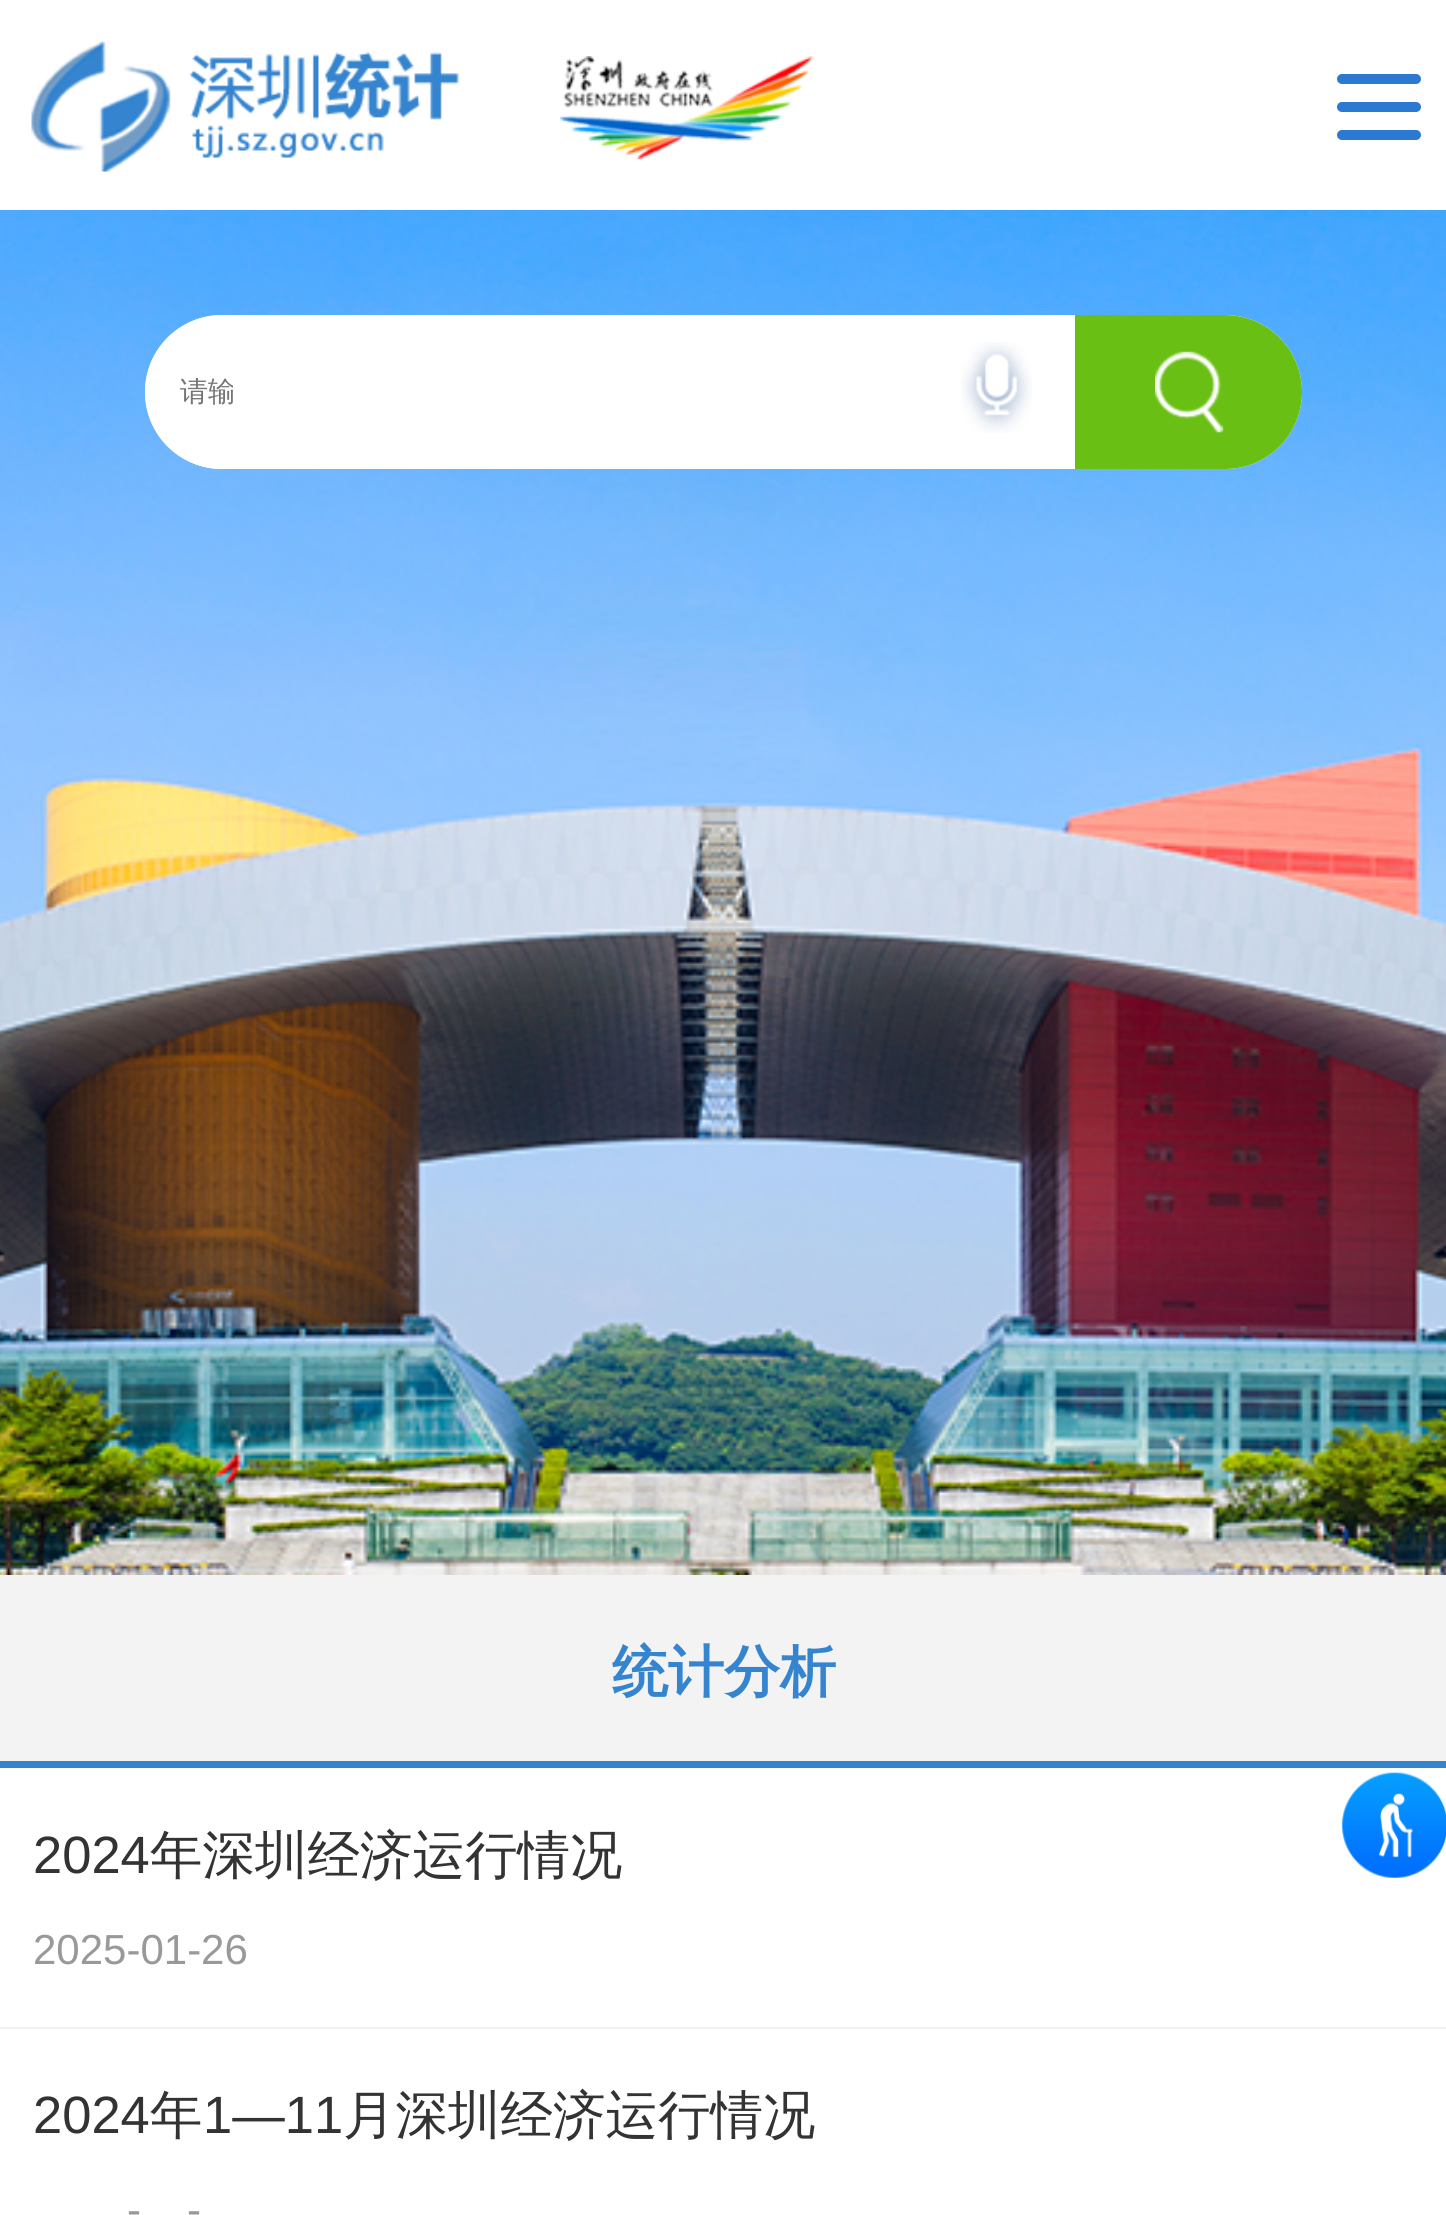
import math
import cairo



def rounded_rect(context, x, y, w, h, r):
    context.new_sub_path()
    for i, (u, v) in enumerate([(x + w - r, y + h - r), (x + r, y + h - r), (x + r, y + r), (x + w - r, y + r)]):
        context.arc(u, v, r, i * math.pi / 2, (i + 1) * math.pi / 2)
    context.close_path()


def draw_image(context, path, x, y, w, h):
    context.save()
    context.set_source_surface(cairo.ImageSurface.create_from_png(path), x, y)
    context.rectangle(x, y, w, h)
    context.fill()
    context.restore()


def draw(context):
    context.set_source_rgb(1, 1, 1)
    context.paint()
    draw_image(context, "images/1.png", 0, 210, 1446, 1365)
    draw_image(context, "images/2.png", 31, 41, 428, 131)
    draw_image(context, "images/3.png", 560, 56, 254, 104)
    context.set_source_rgb(44 / 255, 121 / 255, 210 / 255)
    rounded_rect(context, 1337, 74, 84, 10, 5)
    context.fill()
    rounded_rect(context, 1337, 102, 84, 10, 5)
    context.fill()
    rounded_rect(context, 1337, 130, 84, 10, 5)
    context.fill()
    context.set_source_rgb(1, 1, 1)
    rounded_rect(context, 145, 315, 1157, 154, 77)
    context.fill()
    context.new_path()
    context.move_to(222, 315)
    context.line_to(268, 315)
    context.line_to(268, 469)
    context.line_to(222, 469)
    context.curve_to(179.5, 469, 145, 434.5, 145, 392)
    context.curve_to(145, 349.5, 179.5, 315, 222, 315)
    context.close_path()
    context.fill()
    draw_image(context, "images/4.png", 961, 342, 71, 91)
    context.set_source_rgb(105 / 255, 191 / 255, 20 / 255)
    context.new_path()
    context.move_to(1075, 315)
    context.line_to(1225, 315)
    context.curve_to(1267.5, 315, 1302, 349.5, 1302, 392)
    context.curve_to(1302, 434.5, 1267.5, 469, 1225, 469)
    context.line_to(1075, 469)
    context.close_path()
    context.fill()
    draw_image(context, "images/5.png", 1155, 351, 69, 82)
    draw_image(context, "images/6.png", 1342, 1772, 104, 106)
    context.set_source_rgb(243 / 255, 243 / 255, 243 / 255)
    context.rectangle(0, 1575, 1446, 186)
    context.fill()
    context.set_source_rgb(53 / 255, 132 / 255, 207 / 255)
    context.rectangle(0, 1761, 1446, 7)
    context.fill()
    context.set_source_rgb(242 / 255, 242 / 255, 242 / 255)
    context.rectangle(0, 2027, 1446, 2)
    context.fill()
    context.save()
    context.rectangle(180, 375, 53, 36)
    context.clip()
    context.select_font_face("WenQuanYi Zen Hei Medium")
    context.set_font_size(28)
    context.set_source_rgb(117 / 255, 117 / 255, 117 / 255)
    context.move_to(180, 401)
    context.show_text("请输")
    context.restore()
    context.select_font_face("WenQuanYi Zen Hei", cairo.FontSlant.NORMAL, cairo.FontWeight.BOLD)
    context.set_font_size(56)
    context.set_source_rgb(53 / 255, 132 / 255, 207 / 255)
    context.move_to(612, 1691)
    context.show_text("统计分析")
    context.select_font_face("Liberation Sans")
    context.set_font_size(52.5)
    context.set_source_rgb(51 / 255, 51 / 255, 51 / 255)
    context.move_to(33, 1873)
    context.show_text("2024")
    context.select_font_face("WenQuanYi Zen Hei Medium")
    context.move_to(150, 1873)
    context.show_text("年深圳经济运行情况")
    context.select_font_face("Liberation Sans")
    context.set_font_size(42)
    context.set_source_rgb(153 / 255, 153 / 255, 153 / 255)
    context.move_to(33, 1964)
    context.show_text("2025-01-26")
    context.set_font_size(52.5)
    context.set_source_rgb(51 / 255, 51 / 255, 51 / 255)
    context.move_to(33, 2133)
    context.show_text("2024")
    context.select_font_face("WenQuanYi Zen Hei Medium")
    context.move_to(150, 2133)
    context.show_text("年")
    context.select_font_face("Liberation Sans")
    context.move_to(203, 2133)
    context.show_text("1—11")
    context.select_font_face("WenQuanYi Zen Hei Medium")
    context.move_to(343, 2133)
    context.show_text("月深圳经济运行情况")
    context.select_font_face("Liberation Sans")
    context.set_font_size(42)
    context.set_source_rgb(153 / 255, 153 / 255, 153 / 255)
    context.move_to(127, 2224)
    context.show_text("-")
    context.move_to(187, 2224)
    context.show_text("-")


surface = cairo.ImageSurface(cairo.Format.RGB24, 1446, 2215)
context = cairo.Context(surface)
options = cairo.FontOptions()
options.set_hint_metrics(cairo.HintMetrics.OFF)
options.set_hint_style(cairo.HintStyle.NONE)
context.set_font_options(options)
context.set_miter_limit(4)
draw(context)
surface.write_to_png("out.png")
